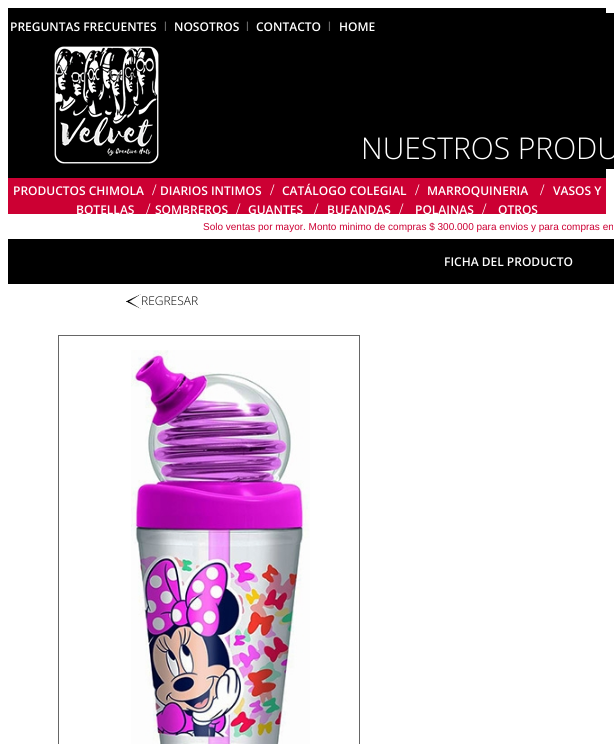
import math
import cairo



def draw_image(context, path, x, y, w, h):
    context.save()
    context.set_source_surface(cairo.ImageSurface.create_from_png(path), x, y)
    context.rectangle(x, y, w, h)
    context.fill()
    context.restore()


def draw(context):
    context.set_source_rgb(1, 1, 1)
    context.paint()
    context.set_source_rgb(0, 0, 0)
    context.rectangle(8, 8, 598, 170)
    context.fill()
    context.rectangle(606, 13, 8, 156)
    context.fill()
    draw_image(context, "images/1.png", 54, 46, 105, 118)
    context.set_source_rgb(204 / 255, 0, 51 / 255)
    context.rectangle(8, 178, 598, 36)
    context.fill()
    context.set_source_rgb(0, 0, 0)
    context.rectangle(8, 239, 606, 45)
    context.fill()
    draw_image(context, "images/2.png", 126, 294, 15, 15)
    context.rectangle(58.5, 335.5, 301, 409)
    context.set_source_rgb(102 / 255, 102 / 255, 102 / 255)
    context.set_line_width(1)
    context.stroke()
    draw_image(context, "images/3.png", 131, 350, 179, 394)
    context.select_font_face("Open Sans SemiBold")
    context.set_font_size(12)
    context.set_source_rgb(1, 1, 1)
    context.move_to(10, 31)
    context.show_text("PREGUNTAS FRECUENTES")
    context.select_font_face("Liberation Sans")
    context.set_font_size(13)
    context.set_source_rgb(102 / 255, 102 / 255, 102 / 255)
    context.move_to(164, 31)
    context.show_text("l")
    context.select_font_face("Open Sans SemiBold")
    context.set_font_size(12)
    context.set_source_rgb(1, 1, 1)
    context.move_to(174, 31)
    context.show_text("NOSOTROS")
    context.select_font_face("Liberation Sans")
    context.set_font_size(13)
    context.set_source_rgb(102 / 255, 102 / 255, 102 / 255)
    context.move_to(246, 31)
    context.show_text("l")
    context.select_font_face("Open Sans SemiBold")
    context.set_font_size(12)
    context.set_source_rgb(1, 1, 1)
    context.move_to(256, 31)
    context.show_text("CONTACTO")
    context.select_font_face("Liberation Sans")
    context.set_font_size(13)
    context.set_source_rgb(102 / 255, 102 / 255, 102 / 255)
    context.move_to(328, 31)
    context.show_text("l")
    context.select_font_face("Open Sans SemiBold")
    context.set_font_size(12)
    context.set_source_rgb(1, 1, 1)
    context.move_to(339, 31)
    context.show_text("HOME")
    context.select_font_face("Open Sans Light")
    context.set_font_size(30)
    context.move_to(361, 159)
    context.show_text("NUESTROS PRODU")
    context.select_font_face("Open Sans SemiBold")
    context.set_font_size(12)
    context.move_to(13, 195)
    context.show_text("PRODUCTOS CHIMOLA")
    context.select_font_face("Liberation Serif")
    context.set_font_size(16)
    context.move_to(152, 195)
    context.show_text("/")
    context.select_font_face("Open Sans SemiBold")
    context.set_font_size(12)
    context.move_to(160, 195)
    context.show_text("DIARIOS INTIMOS")
    context.select_font_face("Liberation Serif")
    context.set_font_size(16)
    context.move_to(270, 195)
    context.show_text("/")
    context.select_font_face("Open Sans SemiBold")
    context.set_font_size(12)
    context.move_to(282, 195)
    context.show_text("CATÁLOGO COLEGIAL")
    context.select_font_face("Liberation Serif")
    context.set_font_size(16)
    context.move_to(415, 195)
    context.show_text("/")
    context.select_font_face("Open Sans SemiBold")
    context.set_font_size(12)
    context.move_to(427, 195)
    context.show_text("MARROQUINERIA")
    context.select_font_face("Liberation Serif")
    context.set_font_size(16)
    context.move_to(540, 195)
    context.show_text("/")
    context.select_font_face("Open Sans SemiBold")
    context.set_font_size(12)
    context.move_to(553, 195)
    context.show_text("VASOS Y")
    context.move_to(76, 214)
    context.show_text("BOTELLAS")
    context.select_font_face("Liberation Serif")
    context.set_font_size(16)
    context.move_to(146, 214)
    context.show_text("/")
    context.select_font_face("Open Sans SemiBold")
    context.set_font_size(12)
    context.move_to(155, 214)
    context.show_text("SOMBREROS")
    context.select_font_face("Liberation Serif")
    context.set_font_size(16)
    context.move_to(236, 214)
    context.show_text("/")
    context.select_font_face("Open Sans SemiBold")
    context.set_font_size(12)
    context.move_to(248, 214)
    context.show_text("GUANTES")
    context.select_font_face("Liberation Serif")
    context.set_font_size(16)
    context.move_to(314, 214)
    context.show_text("/")
    context.select_font_face("Open Sans SemiBold")
    context.set_font_size(12)
    context.move_to(327, 214)
    context.show_text("BUFANDAS")
    context.select_font_face("Liberation Serif")
    context.set_font_size(16)
    context.move_to(399, 214)
    context.show_text("/")
    context.select_font_face("Open Sans SemiBold")
    context.set_font_size(12)
    context.move_to(415, 214)
    context.show_text("POLAINAS")
    context.select_font_face("Liberation Serif")
    context.set_font_size(16)
    context.move_to(482, 214)
    context.show_text("/")
    context.select_font_face("Open Sans SemiBold")
    context.set_font_size(12)
    context.move_to(498, 214)
    context.show_text("OTROS")
    context.select_font_face("Liberation Sans")
    context.set_font_size(10)
    context.set_source_rgb(204 / 255, 0, 51 / 255)
    context.move_to(203, 230)
    context.show_text("Solo ventas por mayor. Monto minimo de compras $ 300.000 para envios y para compras en")
    context.select_font_face("Open Sans SemiBold")
    context.set_font_size(12)
    context.set_source_rgb(1, 1, 1)
    context.move_to(444, 266)
    context.show_text("FICHA DEL PRODUCTO")
    context.select_font_face("Open Sans Light")
    context.set_source_rgb(0, 0, 0)
    context.move_to(141, 305)
    context.show_text("REGRESAR")


surface = cairo.ImageSurface(cairo.Format.RGB24, 614, 744)
context = cairo.Context(surface)
options = cairo.FontOptions()
options.set_hint_metrics(cairo.HintMetrics.OFF)
options.set_hint_style(cairo.HintStyle.NONE)
context.set_font_options(options)
context.set_miter_limit(4)
draw(context)
surface.write_to_png("out.png")
